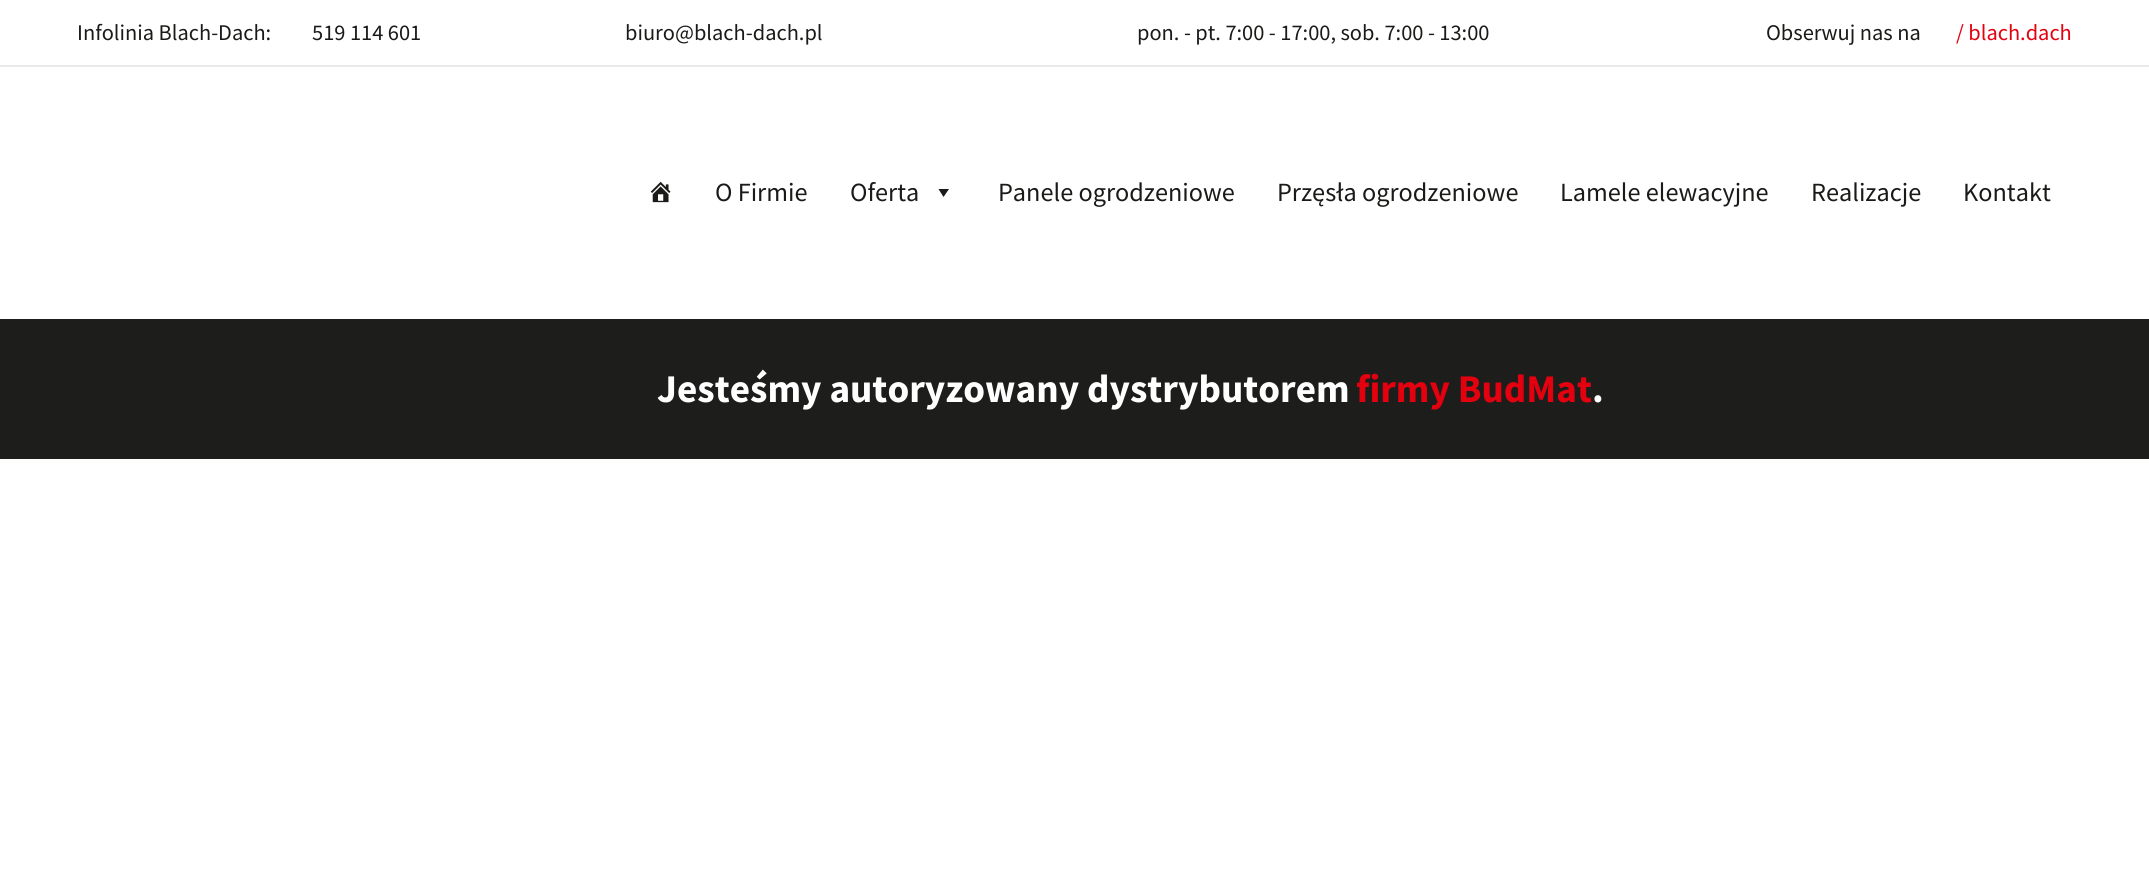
import math
import cairo



def draw_image(context, path, x, y, w, h):
    context.save()
    context.set_source_surface(cairo.ImageSurface.create_from_png(path), x, y)
    context.rectangle(x, y, w, h)
    context.fill()
    context.restore()


def draw(context):
    context.set_source_rgb(1, 1, 1)
    context.paint()
    context.set_source_rgb(234 / 255, 234 / 255, 234 / 255)
    context.rectangle(0, 65, 2149, 2)
    context.fill()
    draw_image(context, "images/1.png", 650, 181, 21, 22)
    context.set_source_rgb(26 / 255, 26 / 255, 24 / 255)
    context.new_path()
    context.move_to(949, 189)
    context.line_to(943.5, 197)
    context.line_to(938.5, 189)
    context.close_path()
    context.fill()
    context.set_source_rgb(29 / 255, 29 / 255, 28 / 255)
    context.rectangle(0, 319, 2149, 140)
    context.fill()
    context.select_font_face("Source Sans Pro")
    context.set_font_size(22.4)
    context.set_source_rgb(26 / 255, 26 / 255, 24 / 255)
    context.move_to(77, 40)
    context.show_text("Infolinia Blach-Dach:")
    context.move_to(312, 40)
    context.show_text("519 114 601")
    context.move_to(625, 40)
    context.show_text("biuro@blach-dach.pl")
    context.move_to(1137, 40)
    context.show_text("pon. - pt. 7:00 - 17:00, sob. 7:00 - 13:00")
    context.move_to(1766, 40)
    context.show_text("Obserwuj nas na")
    context.set_source_rgb(227 / 255, 0, 15 / 255)
    context.move_to(1956, 40)
    context.show_text("/ blach.dach")
    context.set_font_size(26.25)
    context.set_source_rgb(26 / 255, 26 / 255, 24 / 255)
    context.move_to(715, 201)
    context.show_text("O Firmie")
    context.move_to(850, 201)
    context.show_text("Oferta")
    context.move_to(998, 201)
    context.show_text("Panele ogrodzeniowe")
    context.move_to(1277, 201)
    context.show_text("Przęsła ogrodzeniowe")
    context.move_to(1560, 201)
    context.show_text("Lamele elewacyjne")
    context.move_to(1811, 201)
    context.show_text("Realizacje")
    context.move_to(1963, 201)
    context.show_text("Kontakt")
    context.select_font_face("Source Sans Pro", cairo.FontSlant.NORMAL, cairo.FontWeight.BOLD)
    context.set_font_size(39.25)
    context.set_source_rgb(1, 1, 1)
    context.move_to(657, 402)
    context.show_text("Jesteśmy autoryzowany dystrybutorem")
    context.set_source_rgb(227 / 255, 0, 15 / 255)
    context.move_to(1356, 402)
    context.show_text("firmy BudMat")
    context.set_source_rgb(1, 1, 1)
    context.move_to(1592, 402)
    context.show_text(".")


surface = cairo.ImageSurface(cairo.Format.RGB24, 2149, 891)
context = cairo.Context(surface)
options = cairo.FontOptions()
options.set_hint_metrics(cairo.HintMetrics.OFF)
options.set_hint_style(cairo.HintStyle.NONE)
context.set_font_options(options)
context.set_miter_limit(4)
draw(context)
surface.write_to_png("out.png")
